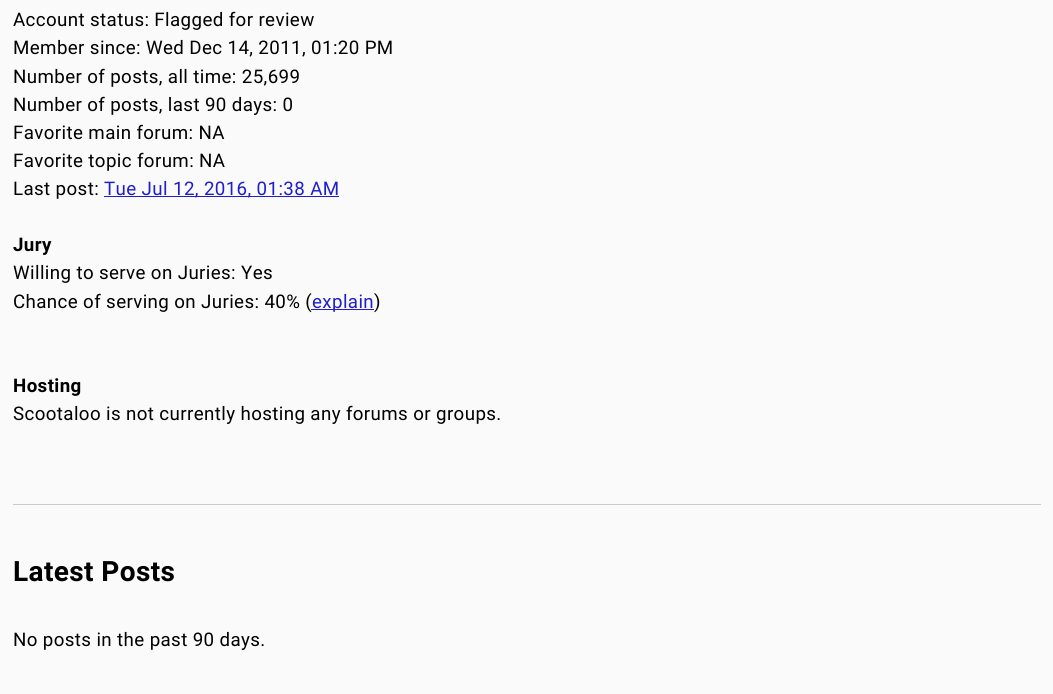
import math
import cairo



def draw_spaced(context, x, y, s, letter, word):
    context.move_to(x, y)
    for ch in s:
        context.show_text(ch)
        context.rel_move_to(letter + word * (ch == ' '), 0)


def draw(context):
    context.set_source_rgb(250 / 255, 250 / 255, 250 / 255)
    context.paint()
    context.set_source_rgb(30 / 255, 30 / 255, 207 / 255)
    context.rectangle(104, 196, 235, 1)
    context.fill()
    context.rectangle(311, 309, 63, 1)
    context.fill()
    context.set_source_rgb(204 / 255, 204 / 255, 204 / 255)
    context.rectangle(13, 504, 1028, 1)
    context.fill()
    context.select_font_face("Roboto")
    context.set_font_size(18.75)
    context.set_source_rgb(0, 0, 0)
    draw_spaced(context, 13, 26, "Account status: Flagged for review", 0.38, 0)
    draw_spaced(context, 13, 54, "Member since: Wed Dec 14, 2011, 01:20 PM", 0.38, 0)
    draw_spaced(context, 13, 83, "Number of posts, all time: 25,699", 0.38, 0)
    draw_spaced(context, 13, 111, "Number of posts, last 90 days: 0", 0.38, 0)
    draw_spaced(context, 13, 139, "Favorite main forum: NA", 0.38, 0)
    draw_spaced(context, 13, 167, "Favorite topic forum: NA", 0.38, 0)
    draw_spaced(context, 13, 195, "Last post:", 0.38, 0)
    context.set_source_rgb(30 / 255, 30 / 255, 207 / 255)
    draw_spaced(context, 104, 195, "Tue Jul 12, 2016, 01:38 AM", 0.38, 0)
    context.select_font_face("Roboto", cairo.FontSlant.NORMAL, cairo.FontWeight.BOLD)
    context.set_source_rgb(0, 0, 0)
    draw_spaced(context, 13, 251, "Jury", 0.38, 0)
    context.select_font_face("Roboto")
    draw_spaced(context, 13, 279, "Willing to serve on Juries: Yes", 0.38, 0)
    draw_spaced(context, 13, 308, "Chance of serving on Juries: 40% (", 0.38, 0)
    context.set_source_rgb(30 / 255, 30 / 255, 207 / 255)
    draw_spaced(context, 312, 308, "explain", 0.38, 0)
    context.set_source_rgb(0, 0, 0)
    draw_spaced(context, 374, 308, ")", 0.38, 0)
    context.select_font_face("Roboto", cairo.FontSlant.NORMAL, cairo.FontWeight.BOLD)
    draw_spaced(context, 13, 392, "Hosting", 0.38, 0)
    context.select_font_face("Roboto")
    draw_spaced(context, 13, 420, "Scootaloo is not currently hosting any forums or groups.", 0.38, 0)
    context.select_font_face("Roboto", cairo.FontSlant.NORMAL, cairo.FontWeight.BOLD)
    context.set_font_size(28)
    draw_spaced(context, 13, 581, "Latest Posts", 0.38, 0)
    context.select_font_face("Roboto")
    context.set_font_size(18.75)
    draw_spaced(context, 13, 646, "No posts in the past 90 days.", 0.38, 0)


surface = cairo.ImageSurface(cairo.Format.RGB24, 1053, 694)
context = cairo.Context(surface)
options = cairo.FontOptions()
options.set_hint_metrics(cairo.HintMetrics.OFF)
options.set_hint_style(cairo.HintStyle.NONE)
context.set_font_options(options)
context.set_miter_limit(4)
draw(context)
surface.write_to_png("out.png")
